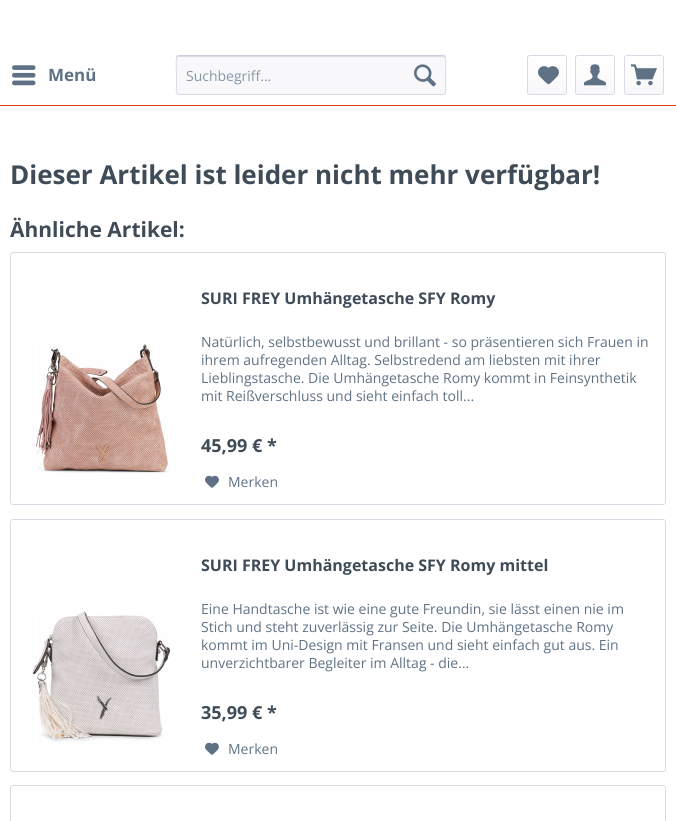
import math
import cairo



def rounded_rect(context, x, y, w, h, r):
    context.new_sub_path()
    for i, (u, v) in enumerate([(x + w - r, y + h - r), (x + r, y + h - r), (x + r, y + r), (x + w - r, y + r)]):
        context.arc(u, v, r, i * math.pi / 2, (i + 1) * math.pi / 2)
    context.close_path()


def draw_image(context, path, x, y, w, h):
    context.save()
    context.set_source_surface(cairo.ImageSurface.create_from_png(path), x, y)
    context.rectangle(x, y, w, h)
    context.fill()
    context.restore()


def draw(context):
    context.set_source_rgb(1, 1, 1)
    context.paint()
    context.set_source_rgb(217 / 255, 64 / 255, 11 / 255)
    context.rectangle(0, 105, 676, 1)
    context.fill()
    draw_image(context, "images/1.png", 12, 65, 24, 21)
    context.set_source_rgb(248 / 255, 248 / 255, 250 / 255)
    rounded_rect(context, 176, 55, 270, 40, 3)
    context.fill()
    context.set_source_rgb(218 / 255, 218 / 255, 229 / 255)
    context.new_path()
    context.move_to(179, 57)
    context.line_to(443, 57)
    context.curve_to(444, 57, 445, 58, 445, 59)
    context.line_to(445, 57)
    context.line_to(443, 56)
    context.line_to(179, 56)
    context.curve_to(177, 56, 177, 58, 177, 59)
    context.curve_to(177, 58, 178, 57, 179, 57)
    context.close_path()
    context.fill()
    context.new_path()
    context.move_to(177, 56)
    context.line_to(179, 55.5)
    context.line_to(443, 55.5)
    context.line_to(445, 56)
    context.set_source_rgb(203 / 255, 203 / 255, 219 / 255)
    context.set_line_width(1)
    context.stroke()
    context.new_path()
    context.move_to(445, 56)
    context.curve_to(446.5, 58, 445.5, 72, 445.5, 75)
    context.line_to(445.5, 86.5)
    context.curve_to(445.5, 88, 447, 94.5, 443, 94.5)
    context.line_to(179, 94.5)
    context.curve_to(175, 94.5, 176.5, 88, 176.5, 86.5)
    context.line_to(176.5, 75)
    context.curve_to(176.5, 72, 175.5, 58, 177, 56)
    context.set_source_rgb(218 / 255, 218 / 255, 229 / 255)
    context.stroke()
    draw_image(context, "images/2.png", 414, 64, 22, 23)
    gradient = cairo.LinearGradient(547, 56, 547, 94)
    gradient.add_color_stop_rgba(0, 1, 1, 1, 1)
    gradient.add_color_stop_rgba(1, 248 / 255, 248 / 255, 250 / 255, 1)
    context.set_source(gradient)
    rounded_rect(context, 528, 56, 38, 38, 2)
    context.fill()
    rounded_rect(context, 527.5, 55.5, 39, 39, 2.5)
    context.set_source_rgb(218 / 255, 218 / 255, 229 / 255)
    context.stroke()
    draw_image(context, "images/3.png", 538, 66, 21, 19)
    gradient = cairo.LinearGradient(595, 56, 595, 94)
    gradient.add_color_stop_rgba(0, 1, 1, 1, 1)
    gradient.add_color_stop_rgba(1, 248 / 255, 248 / 255, 250 / 255, 1)
    context.set_source(gradient)
    rounded_rect(context, 576, 56, 38, 38, 2)
    context.fill()
    rounded_rect(context, 575.5, 55.5, 39, 39, 2.5)
    context.set_source_rgb(218 / 255, 218 / 255, 229 / 255)
    context.stroke()
    draw_image(context, "images/4.png", 584, 64, 22, 22)
    gradient = cairo.LinearGradient(644, 56, 644, 94)
    gradient.add_color_stop_rgba(0, 1, 1, 1, 1)
    gradient.add_color_stop_rgba(1, 248 / 255, 248 / 255, 250 / 255, 1)
    context.set_source(gradient)
    rounded_rect(context, 625, 56, 38, 38, 2)
    context.fill()
    rounded_rect(context, 624.5, 55.5, 39, 39, 2.5)
    context.set_source_rgb(218 / 255, 218 / 255, 229 / 255)
    context.stroke()
    draw_image(context, "images/5.png", 631, 64, 26, 22)
    rounded_rect(context, 10.5, 252.5, 655, 252, 2.5)
    context.stroke()
    draw_image(context, "images/6.png", 32, 343, 138, 134)
    draw_image(context, "images/7.png", 205, 475, 14, 13)
    rounded_rect(context, 10.5, 519.5, 655, 252, 2.5)
    context.stroke()
    draw_image(context, "images/8.png", 32, 610, 139, 135)
    draw_image(context, "images/7.png", 205, 742, 14, 13)
    rounded_rect(context, 10.5, 785.5, 655, 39, 2.5)
    context.stroke()
    context.select_font_face("Open Sans", cairo.FontSlant.NORMAL, cairo.FontWeight.BOLD)
    context.set_font_size(17)
    context.set_source_rgb(95 / 255, 114 / 255, 133 / 255)
    context.move_to(48, 81)
    context.show_text("Menü")
    context.select_font_face("Open Sans")
    context.set_font_size(14)
    context.set_source_rgb(135 / 255, 152 / 255, 169 / 255)
    context.move_to(186, 81)
    context.show_text("Suchbegriff...")
    context.select_font_face("Open Sans", cairo.FontSlant.NORMAL, cairo.FontWeight.BOLD)
    context.set_font_size(26)
    context.set_source_rgb(63 / 255, 76 / 255, 88 / 255)
    context.move_to(10, 184)
    context.show_text("Dieser Artikel ist leider nicht mehr verfügbar!")
    context.set_font_size(21)
    context.move_to(10, 237)
    context.show_text("Ähnliche Artikel:")
    context.set_font_size(16)
    context.move_to(201, 304)
    context.show_text("SURI FREY Umhängetasche SFY Romy")
    context.select_font_face("Open Sans")
    context.set_font_size(14)
    context.set_source_rgb(95 / 255, 114 / 255, 133 / 255)
    context.move_to(201, 347)
    context.show_text("Natürlich, selbstbewusst und brillant - so präsentieren sich Frauen in")
    context.move_to(201, 365)
    context.show_text("ihrem aufregenden Alltag. Selbstredend am liebsten mit ihrer")
    context.move_to(201, 383)
    context.show_text("Lieblingstasche. Die Umhängetasche Romy kommt in Feinsynthetik")
    context.move_to(201, 401)
    context.show_text("mit Reißverschluss und sieht einfach toll...")
    context.select_font_face("Open Sans", cairo.FontSlant.NORMAL, cairo.FontWeight.BOLD)
    context.set_font_size(18)
    context.set_source_rgb(63 / 255, 76 / 255, 88 / 255)
    context.move_to(201, 452)
    context.show_text("45,99 € *")
    context.select_font_face("Open Sans")
    context.set_font_size(14)
    context.set_source_rgb(95 / 255, 114 / 255, 133 / 255)
    context.move_to(228, 487)
    context.show_text("Merken")
    context.select_font_face("Open Sans", cairo.FontSlant.NORMAL, cairo.FontWeight.BOLD)
    context.set_font_size(16)
    context.set_source_rgb(63 / 255, 76 / 255, 88 / 255)
    context.move_to(201, 571)
    context.show_text("SURI FREY Umhängetasche SFY Romy mittel")
    context.select_font_face("Open Sans")
    context.set_font_size(14)
    context.set_source_rgb(95 / 255, 114 / 255, 133 / 255)
    context.move_to(201, 614)
    context.show_text("Eine Handtasche ist wie eine gute Freundin, sie lässt einen nie im")
    context.move_to(201, 632)
    context.show_text("Stich und steht zuverlässig zur Seite. Die Umhängetasche Romy")
    context.move_to(201, 650)
    context.show_text("kommt im Uni-Design mit Fransen und sieht einfach gut aus. Ein")
    context.move_to(201, 668)
    context.show_text("unverzichtbarer Begleiter im Alltag - die...")
    context.select_font_face("Open Sans", cairo.FontSlant.NORMAL, cairo.FontWeight.BOLD)
    context.set_font_size(18)
    context.set_source_rgb(63 / 255, 76 / 255, 88 / 255)
    context.move_to(201, 719)
    context.show_text("35,99 € *")
    context.select_font_face("Open Sans")
    context.set_font_size(14)
    context.set_source_rgb(95 / 255, 114 / 255, 133 / 255)
    context.move_to(228, 754)
    context.show_text("Merken")


surface = cairo.ImageSurface(cairo.Format.RGB24, 676, 821)
context = cairo.Context(surface)
options = cairo.FontOptions()
options.set_hint_metrics(cairo.HintMetrics.OFF)
options.set_hint_style(cairo.HintStyle.NONE)
context.set_font_options(options)
context.set_miter_limit(4)
draw(context)
surface.write_to_png("out.png")
